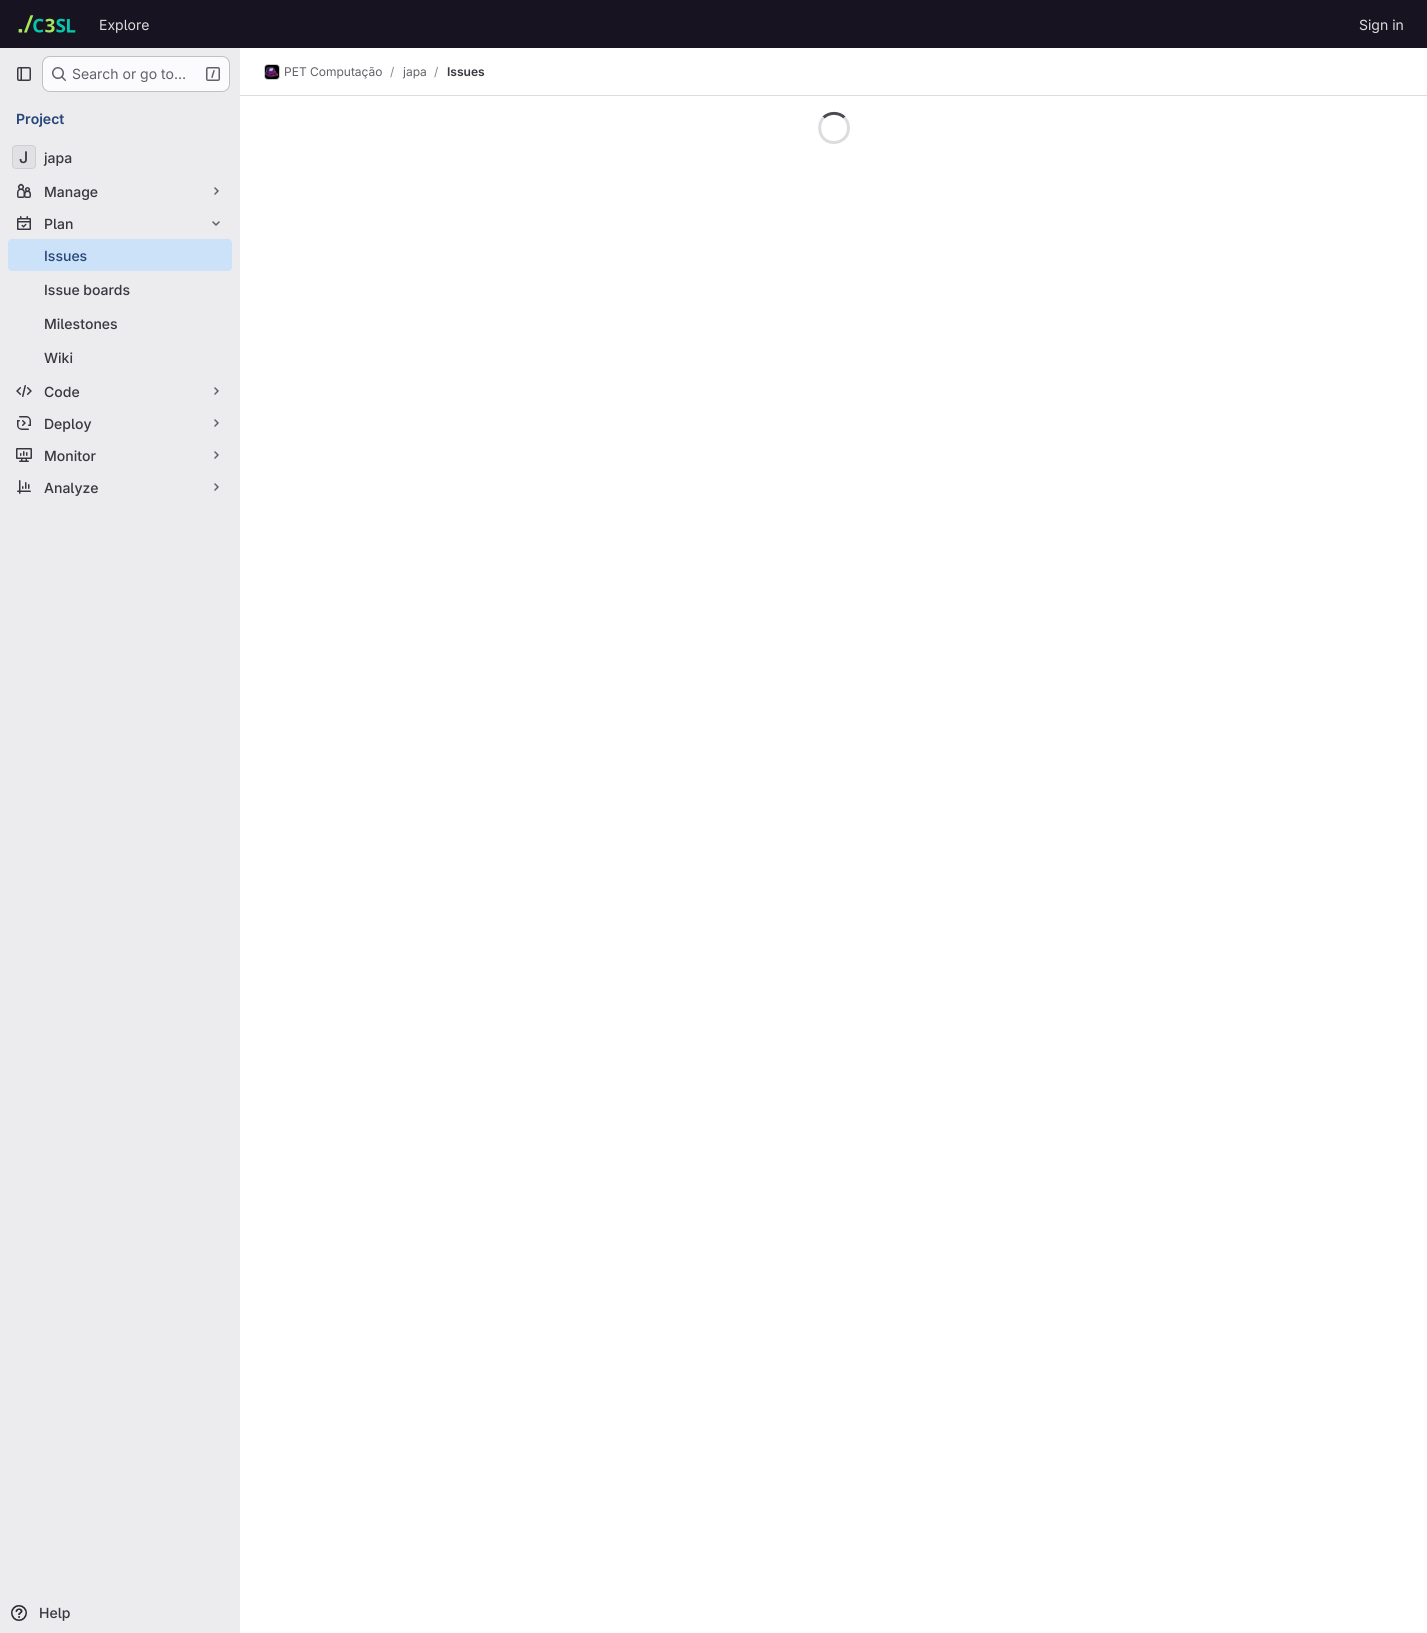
import math
import cairo



def rounded_rect(context, x, y, w, h, r):
    context.new_sub_path()
    for i, (u, v) in enumerate([(x + w - r, y + h - r), (x + r, y + h - r), (x + r, y + r), (x + w - r, y + r)]):
        context.arc(u, v, r, i * math.pi / 2, (i + 1) * math.pi / 2)
    context.close_path()


def draw_image(context, path, x, y, w, h):
    context.save()
    context.set_source_surface(cairo.ImageSurface.create_from_png(path), x, y)
    context.rectangle(x, y, w, h)
    context.fill()
    context.restore()


def draw(context):
    context.set_source_rgb(1, 1, 1)
    context.paint()
    context.set_source_rgb(23 / 255, 19 / 255, 33 / 255)
    context.rectangle(0, 0, 1427, 48)
    context.fill()
    draw_image(context, "images/1.png", 18, 15, 58, 18)
    context.set_source_rgb(236 / 255, 236 / 255, 239 / 255)
    context.rectangle(0, 48, 240, 1585)
    context.fill()
    draw_image(context, "images/2.png", 17, 67, 14, 14)
    context.set_source_rgb(251 / 255, 250 / 255, 253 / 255)
    rounded_rect(context, 42, 56, 188, 36, 8)
    context.fill()
    rounded_rect(context, 42.5, 56.5, 187, 35, 7.5)
    context.set_source_rgba(5 / 255, 5 / 255, 6 / 255, 0.24)
    context.set_line_width(1)
    context.stroke()
    draw_image(context, "images/3.png", 52, 67, 14, 14)
    draw_image(context, "images/4.png", 206, 67, 14, 14)
    context.set_source_rgb(225 / 255, 225 / 255, 228 / 255)
    rounded_rect(context, 12, 145, 24, 24, 4)
    context.fill()
    rounded_rect(context, 12.5, 145.5, 23, 23, 3.5)
    context.set_source_rgba(5 / 255, 5 / 255, 6 / 255, 0.08)
    context.stroke()
    draw_image(context, "images/5.png", 17, 183, 14, 15)
    context.new_path()
    context.move_to(215, 188)
    context.line_to(218, 191)
    context.line_to(215, 194)
    context.set_source_rgb(98 / 255, 97 / 255, 104 / 255)
    context.set_line_width(1.5)
    context.set_line_cap(cairo.LineCap.ROUND)
    context.set_line_join(cairo.LineJoin.ROUND)
    context.stroke()
    draw_image(context, "images/6.png", 17, 216, 14, 14)
    context.new_path()
    context.move_to(219, 222)
    context.line_to(216, 225)
    context.line_to(213, 222)
    context.stroke()
    context.set_source_rgb(203 / 255, 226 / 255, 249 / 255)
    rounded_rect(context, 8, 239, 224, 32, 4)
    context.fill()
    draw_image(context, "images/7.png", 16, 385, 16, 12)
    context.new_path()
    context.move_to(215, 388)
    context.line_to(218, 391)
    context.line_to(215, 394)
    context.set_source_rgb(98 / 255, 97 / 255, 104 / 255)
    context.stroke()
    draw_image(context, "images/8.png", 17, 416, 14, 14)
    context.new_path()
    context.move_to(215, 420)
    context.line_to(218, 423)
    context.line_to(215, 426)
    context.stroke()
    draw_image(context, "images/9.png", 16, 448, 16, 14)
    context.new_path()
    context.move_to(215, 452)
    context.line_to(218, 455)
    context.line_to(215, 458)
    context.stroke()
    draw_image(context, "images/10.png", 17, 480, 14, 14)
    context.new_path()
    context.move_to(215, 484)
    context.line_to(218, 487)
    context.line_to(215, 490)
    context.stroke()
    draw_image(context, "images/11.png", 11, 1605, 16, 16)
    context.set_source_rgb(220 / 255, 220 / 255, 222 / 255)
    context.rectangle(240, 95, 1187, 1)
    context.fill()
    rounded_rect(context, 264.5, 64.5, 15, 15, 3.5)
    context.set_line_width(1)
    context.set_line_cap(cairo.LineCap.BUTT)
    context.set_line_join(cairo.LineJoin.MITER)
    context.stroke()
    draw_image(context, "images/12.png", 265, 65, 14, 14)
    rounded_rect(context, 264.5, 64.5, 15, 15, 3.5)
    context.set_source_rgba(5 / 255, 5 / 255, 6 / 255, 0.08)
    context.stroke()
    context.new_path()
    context.move_to(823.5, 117.5)
    context.curve_to(829.5, 112, 838.5, 112, 844.5, 117.5)
    context.set_source_rgb(76 / 255, 75 / 255, 81 / 255)
    context.set_line_width(3)
    context.stroke()
    context.new_path()
    context.move_to(844.5, 117.5)
    context.curve_to(847, 120.5, 848.5, 124, 848.5, 128)
    context.curve_to(848.5, 145.5, 823, 148, 820, 131)
    context.curve_to(819, 126, 820.5, 121, 823.5, 117.5)
    context.set_source_rgb(220 / 255, 220 / 255, 222 / 255)
    context.stroke()
    context.select_font_face("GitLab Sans")
    context.set_font_size(14)
    context.move_to(99, 30)
    context.show_text("Explore")
    context.move_to(1359, 30)
    context.show_text("Sign in")
    context.set_source_rgb(98 / 255, 97 / 255, 104 / 255)
    context.move_to(72, 79)
    context.show_text("Search or go to…")
    context.select_font_face("GitLab Sans SemiBold")
    context.set_source_rgb(40 / 255, 71 / 255, 121 / 255)
    context.move_to(16, 124)
    context.show_text("Project")
    context.select_font_face("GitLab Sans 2 Medium")
    context.set_font_size(16)
    context.set_source_rgb(58 / 255, 56 / 255, 63 / 255)
    context.move_to(19, 163)
    context.show_text("J")
    context.select_font_face("GitLab Sans Medium")
    context.set_font_size(14)
    context.move_to(44, 163)
    context.show_text("japa")
    context.move_to(44, 197)
    context.show_text("Manage")
    context.move_to(44, 229)
    context.show_text("Plan")
    context.set_source_rgb(40 / 255, 71 / 255, 121 / 255)
    context.move_to(44, 261)
    context.show_text("Issues")
    context.set_source_rgb(58 / 255, 56 / 255, 63 / 255)
    context.move_to(44, 295)
    context.show_text("Issue boards")
    context.move_to(44, 329)
    context.show_text("Milestones")
    context.move_to(44, 363)
    context.show_text("Wiki")
    context.move_to(44, 397)
    context.show_text("Code")
    context.move_to(44, 429)
    context.show_text("Deploy")
    context.move_to(44, 461)
    context.show_text("Monitor")
    context.move_to(44, 493)
    context.show_text("Analyze")
    context.move_to(39, 1618)
    context.show_text("Help")
    context.select_font_face("GitLab Sans")
    context.set_font_size(12)
    context.set_source_rgb(98 / 255, 97 / 255, 104 / 255)
    context.move_to(284, 76)
    context.show_text("PET Computação")
    context.set_source_rgb(137 / 255, 136 / 255, 141 / 255)
    context.move_to(390, 76)
    context.show_text("/")
    context.set_source_rgb(98 / 255, 97 / 255, 104 / 255)
    context.move_to(403, 76)
    context.show_text("japa")
    context.set_source_rgb(137 / 255, 136 / 255, 141 / 255)
    context.move_to(434, 76)
    context.show_text("/")
    context.select_font_face("GitLab Sans SemiBold")
    context.set_source_rgb(58 / 255, 56 / 255, 63 / 255)
    context.move_to(447, 76)
    context.show_text("Issues")


surface = cairo.ImageSurface(cairo.Format.RGB24, 1427, 1633)
context = cairo.Context(surface)
options = cairo.FontOptions()
options.set_hint_metrics(cairo.HintMetrics.OFF)
options.set_hint_style(cairo.HintStyle.NONE)
context.set_font_options(options)
context.set_miter_limit(4)
draw(context)
surface.write_to_png("out.png")
